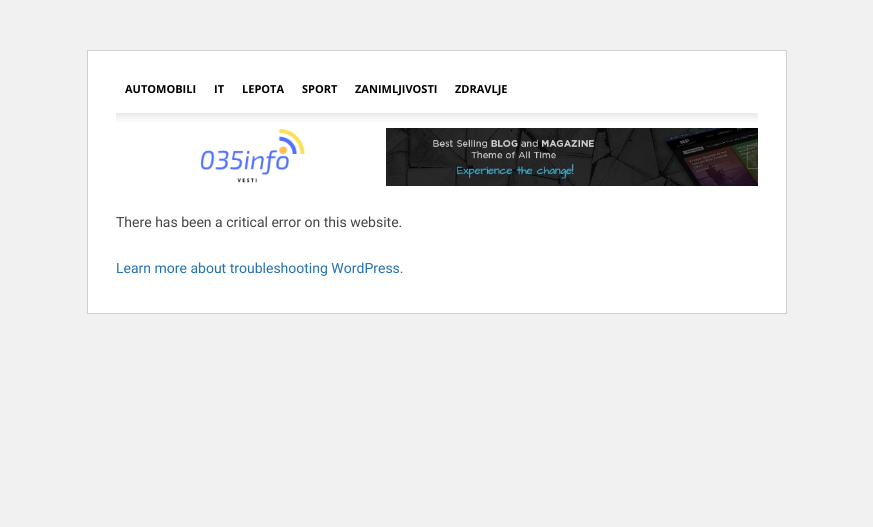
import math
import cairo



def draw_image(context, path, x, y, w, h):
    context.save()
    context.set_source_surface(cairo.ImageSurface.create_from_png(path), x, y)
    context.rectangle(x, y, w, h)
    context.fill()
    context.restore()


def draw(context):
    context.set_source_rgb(241 / 255, 241 / 255, 241 / 255)
    context.paint()
    context.set_source_rgb(1, 1, 1)
    context.rectangle(87.5, 50.5, 699, 263)
    context.fill_preserve()
    context.set_source_rgb(204 / 255, 208 / 255, 212 / 255)
    context.set_line_width(1)
    context.stroke()
    draw_image(context, "images/1.png", 116, 113, 642, 9)
    draw_image(context, "images/2.png", 200, 128, 105, 55)
    draw_image(context, "images/3.png", 386, 128, 372, 58)
    context.select_font_face("Open Sans", cairo.FontSlant.NORMAL, cairo.FontWeight.BOLD)
    context.set_font_size(11)
    context.set_source_rgb(0, 0, 0)
    context.move_to(125, 93)
    context.show_text("AUTOMOBILI")
    context.move_to(214, 93)
    context.show_text("IT")
    context.move_to(242, 93)
    context.show_text("LEPOTA")
    context.move_to(302, 93)
    context.show_text("SPORT")
    context.move_to(355, 93)
    context.show_text("ZANIMLJIVOSTI")
    context.move_to(455, 93)
    context.show_text("ZDRAVLJE")
    context.select_font_face("Roboto")
    context.set_font_size(14)
    context.set_source_rgb(68 / 255, 68 / 255, 68 / 255)
    context.move_to(116, 227)
    context.show_text("There has been a critical error on this website.")
    context.set_source_rgb(34 / 255, 113 / 255, 177 / 255)
    context.move_to(116, 273)
    context.show_text("Learn more about troubleshooting WordPress.")


surface = cairo.ImageSurface(cairo.Format.RGB24, 873, 527)
context = cairo.Context(surface)
options = cairo.FontOptions()
options.set_hint_metrics(cairo.HintMetrics.OFF)
options.set_hint_style(cairo.HintStyle.NONE)
context.set_font_options(options)
context.set_miter_limit(4)
draw(context)
surface.write_to_png("out.png")
